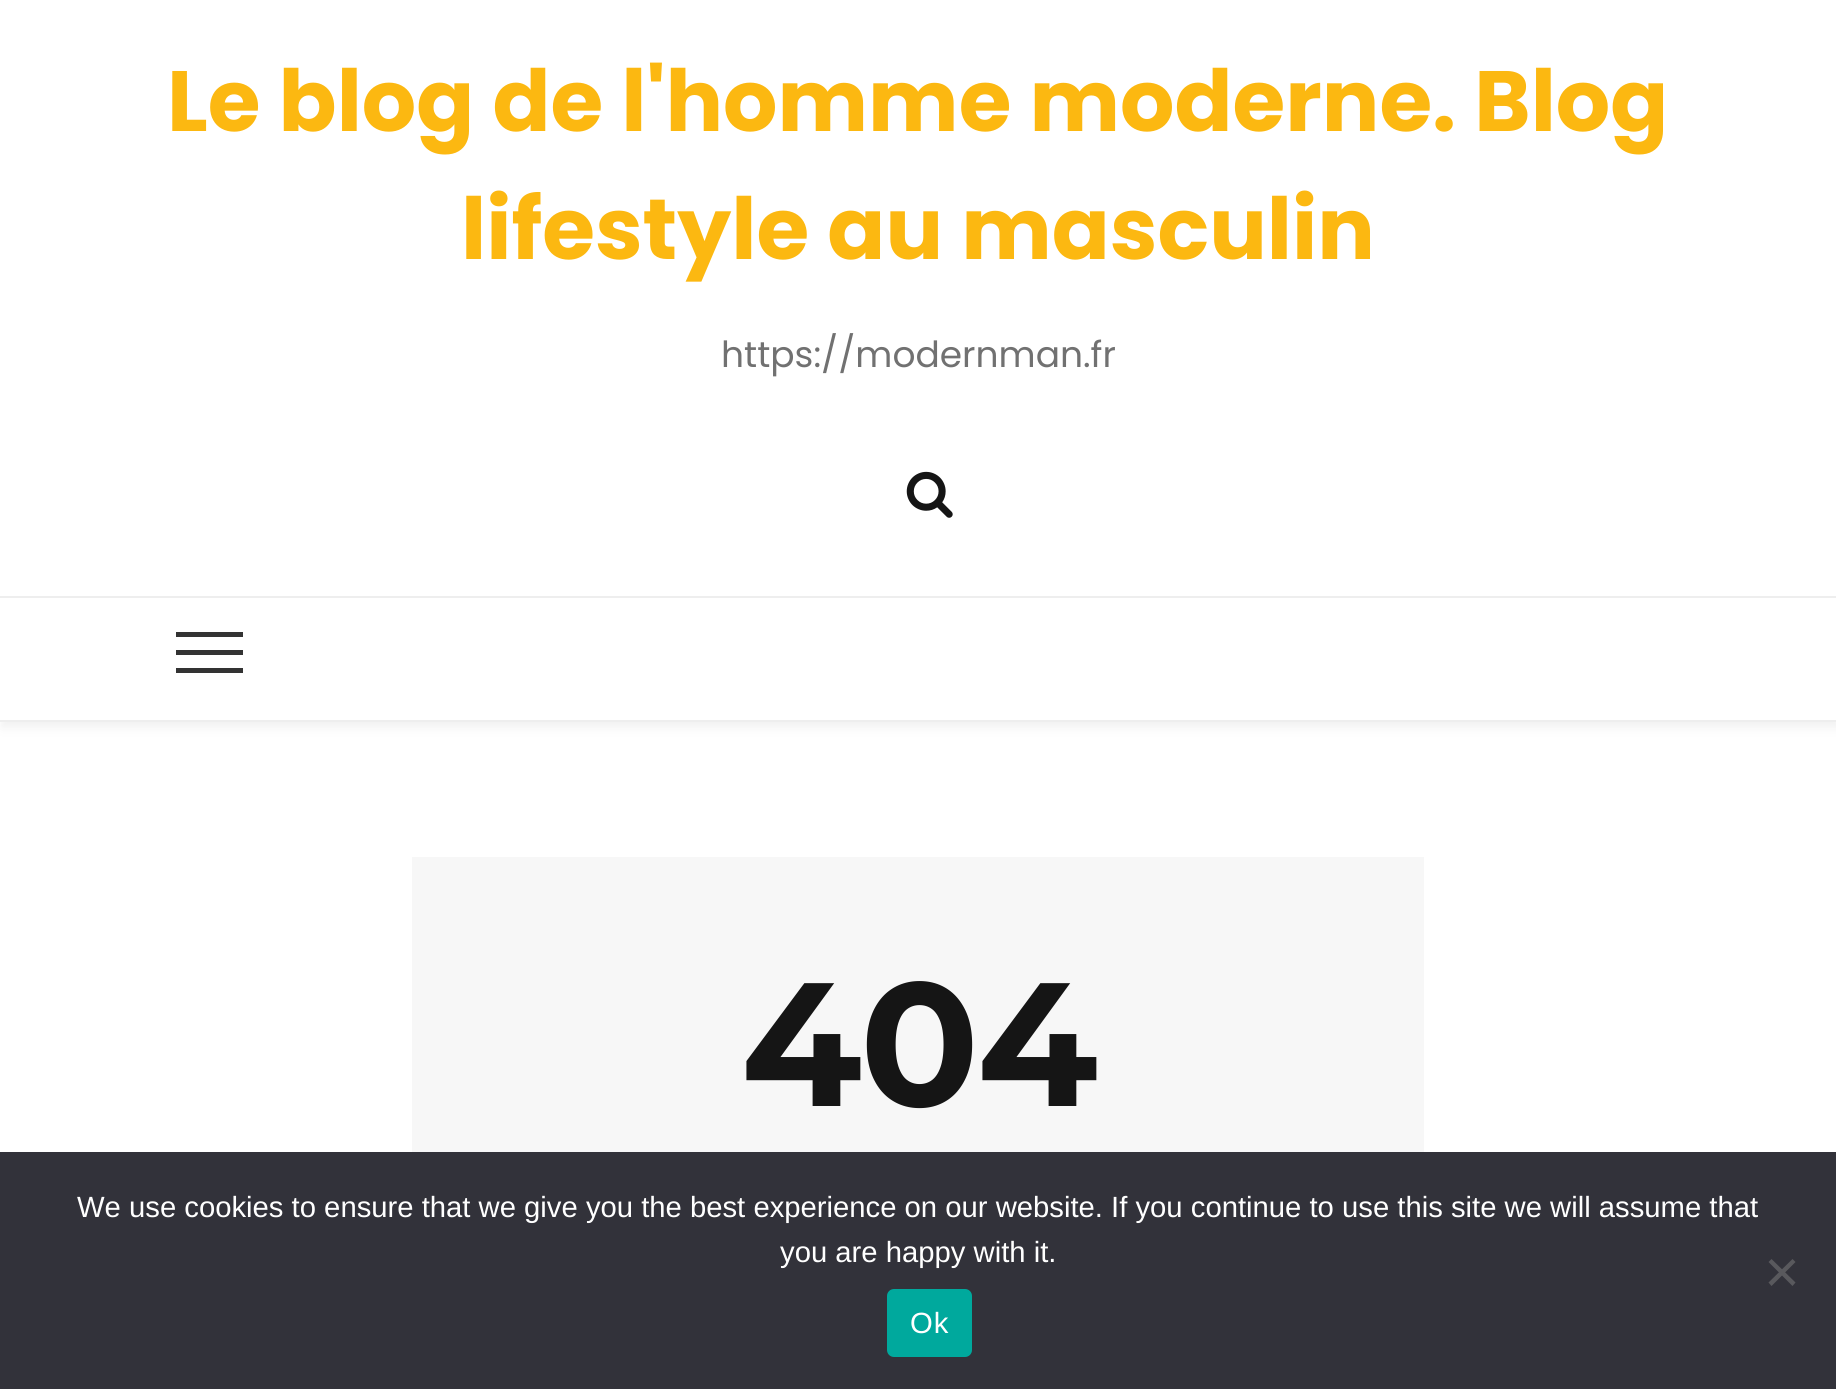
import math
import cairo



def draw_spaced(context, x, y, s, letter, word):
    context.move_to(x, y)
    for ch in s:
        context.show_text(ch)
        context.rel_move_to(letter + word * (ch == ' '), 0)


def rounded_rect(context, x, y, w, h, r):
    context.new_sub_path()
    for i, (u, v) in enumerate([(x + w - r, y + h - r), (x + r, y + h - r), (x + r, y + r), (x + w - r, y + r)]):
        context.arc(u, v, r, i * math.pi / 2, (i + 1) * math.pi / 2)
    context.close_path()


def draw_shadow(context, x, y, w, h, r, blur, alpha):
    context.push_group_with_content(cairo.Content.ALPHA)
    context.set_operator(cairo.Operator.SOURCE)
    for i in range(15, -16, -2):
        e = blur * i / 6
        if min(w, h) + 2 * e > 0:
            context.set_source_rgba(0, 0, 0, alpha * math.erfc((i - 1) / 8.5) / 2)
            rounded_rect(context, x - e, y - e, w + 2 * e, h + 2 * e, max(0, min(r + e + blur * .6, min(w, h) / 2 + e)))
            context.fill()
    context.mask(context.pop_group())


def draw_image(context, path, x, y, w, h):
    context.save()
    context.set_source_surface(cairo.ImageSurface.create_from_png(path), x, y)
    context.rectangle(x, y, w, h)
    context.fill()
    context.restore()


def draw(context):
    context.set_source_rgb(1, 1, 1)
    context.paint()
    context.save()
    context.rectangle(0, 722, 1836, 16)
    context.clip()
    context.set_source_rgb(235 / 255, 235 / 255, 235 / 255)
    draw_shadow(context, 2, 5, 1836, 722, 0, 5.5, 0.75)
    context.restore()
    context.set_source_rgb(238 / 255, 238 / 255, 238 / 255)
    context.rectangle(0, 720, 1836, 2)
    context.fill()
    draw_image(context, "images/1.png", 906, 471, 47, 47)
    context.rectangle(0, 596, 1836, 2)
    context.fill()
    context.set_source_rgb(51 / 255, 51 / 255, 51 / 255)
    context.rectangle(176, 632, 67, 5)
    context.fill()
    context.rectangle(176, 650, 67, 5)
    context.fill()
    context.rectangle(176, 668, 67, 5)
    context.fill()
    context.set_source_rgb(247 / 255, 247 / 255, 247 / 255)
    context.rectangle(412, 857, 1012, 295)
    context.fill()
    context.set_source_rgb(50 / 255, 50 / 255, 58 / 255)
    context.rectangle(0, 1152, 1836, 237)
    context.fill()
    context.set_source_rgb(89 / 255, 89 / 255, 93 / 255)
    context.new_path()
    context.move_to(1792.5, 1259)
    context.line_to(1795.5, 1262)
    context.line_to(1771.5, 1286)
    context.line_to(1768.5, 1282.5)
    context.close_path()
    context.fill()
    context.new_path()
    context.move_to(1768.5, 1262)
    context.line_to(1771.5, 1259)
    context.line_to(1795.5, 1282.5)
    context.line_to(1792.5, 1286)
    context.close_path()
    context.fill()
    context.set_source_rgb(0, 169 / 255, 157 / 255)
    rounded_rect(context, 887, 1289, 85, 68, 7)
    context.fill()
    context.select_font_face("Poppins", cairo.FontSlant.NORMAL, cairo.FontWeight.BOLD)
    context.set_font_size(85.5)
    context.set_source_rgb(252 / 255, 184 / 255, 17 / 255)
    context.move_to(167, 131)
    context.show_text("Le blog de l'homme moderne. Blog")
    context.move_to(461, 259)
    context.show_text("lifestyle au masculin")
    context.select_font_face("Poppins")
    context.set_font_size(36)
    context.set_source_rgb(113 / 255, 113 / 255, 113 / 255)
    context.move_to(721, 367)
    context.show_text("https://modernman.fr")
    context.select_font_face("Montserrat", cairo.FontSlant.NORMAL, cairo.FontWeight.BOLD)
    context.set_font_size(175.5)
    context.set_source_rgb(21 / 255, 21 / 255, 21 / 255)
    draw_spaced(context, 741, 1106, "404", -2, 0)
    context.select_font_face("Liberation Sans")
    context.set_font_size(29.25)
    context.set_source_rgb(1, 1, 1)
    context.move_to(77, 1217)
    context.show_text("We use cookies to ensure that we give you the best experience on our website. If you continue to use this site we will assume that")
    context.move_to(780, 1262)
    context.show_text("you are happy with it.")
    draw_spaced(context, 910, 1333, "Ok", 1, 0)


surface = cairo.ImageSurface(cairo.Format.RGB24, 1836, 1389)
context = cairo.Context(surface)
options = cairo.FontOptions()
options.set_hint_metrics(cairo.HintMetrics.OFF)
options.set_hint_style(cairo.HintStyle.NONE)
context.set_font_options(options)
context.set_miter_limit(4)
draw(context)
surface.write_to_png("out.png")
